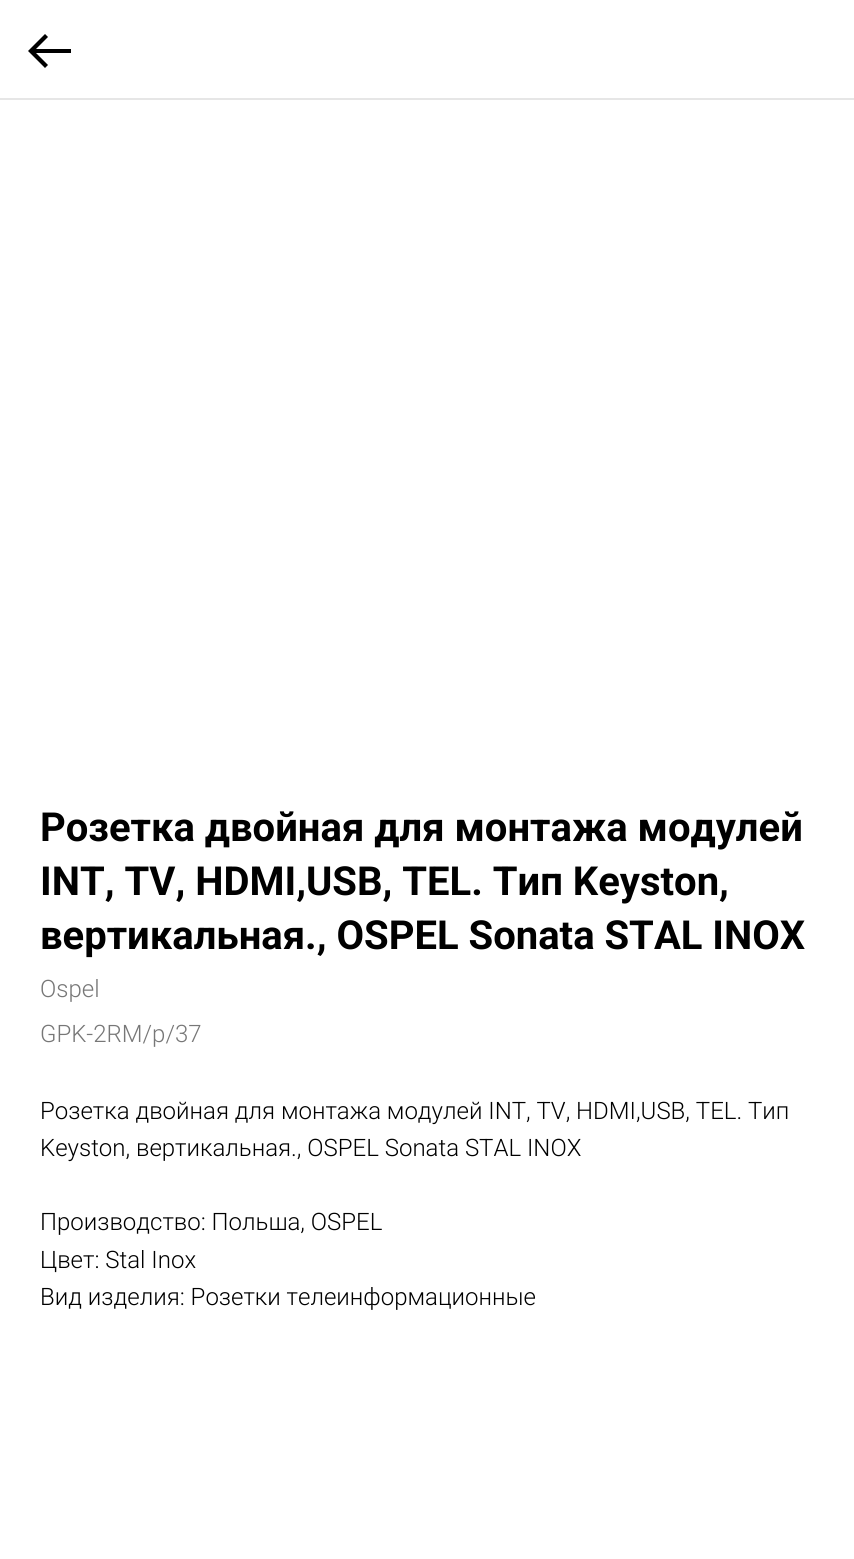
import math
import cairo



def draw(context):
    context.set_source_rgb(1, 1, 1)
    context.paint()
    context.set_source_rgb(230 / 255, 230 / 255, 230 / 255)
    context.rectangle(0, 98, 854, 2)
    context.fill()
    context.set_source_rgb(0, 0, 0)
    context.new_path()
    context.move_to(45, 34)
    context.line_to(48, 37)
    context.line_to(36, 49)
    context.line_to(71, 49)
    context.line_to(71, 53)
    context.line_to(36, 53)
    context.line_to(48, 65)
    context.line_to(45, 68)
    context.line_to(28, 51)
    context.close_path()
    context.fill()
    context.select_font_face("Roboto", cairo.FontSlant.NORMAL, cairo.FontWeight.BOLD)
    context.set_font_size(40)
    context.move_to(40, 841)
    context.show_text("Розетка двойная для монтажа модулей")
    context.move_to(40, 895)
    context.show_text("INT, TV, HDMI,USB, TEL. Тип Keyston,")
    context.move_to(40, 949)
    context.show_text("вертикальная., OSPEL Sonata STAL INOX")
    context.select_font_face("Roboto Light")
    context.set_font_size(24)
    context.set_source_rgb(119 / 255, 119 / 255, 119 / 255)
    context.move_to(40, 997)
    context.show_text("Ospel")
    context.move_to(40, 1042)
    context.show_text("GPK-2RM/p/37")
    context.set_source_rgb(0, 0, 0)
    context.move_to(40, 1119)
    context.show_text("Розетка двойная для монтажа модулей INT, TV, HDMI,USB, TEL. Тип")
    context.move_to(40, 1156)
    context.show_text("Keyston, вертикальная., OSPEL Sonata STAL INOX")
    context.move_to(40, 1230)
    context.show_text("Производство: Польша, OSPEL")
    context.move_to(40, 1268)
    context.show_text("Цвет: Stal Inox")
    context.move_to(40, 1305)
    context.show_text("Вид изделия: Розетки телеинформационные")


surface = cairo.ImageSurface(cairo.Format.RGB24, 854, 1559)
context = cairo.Context(surface)
options = cairo.FontOptions()
options.set_hint_metrics(cairo.HintMetrics.OFF)
options.set_hint_style(cairo.HintStyle.NONE)
context.set_font_options(options)
context.set_miter_limit(4)
draw(context)
surface.write_to_png("out.png")
